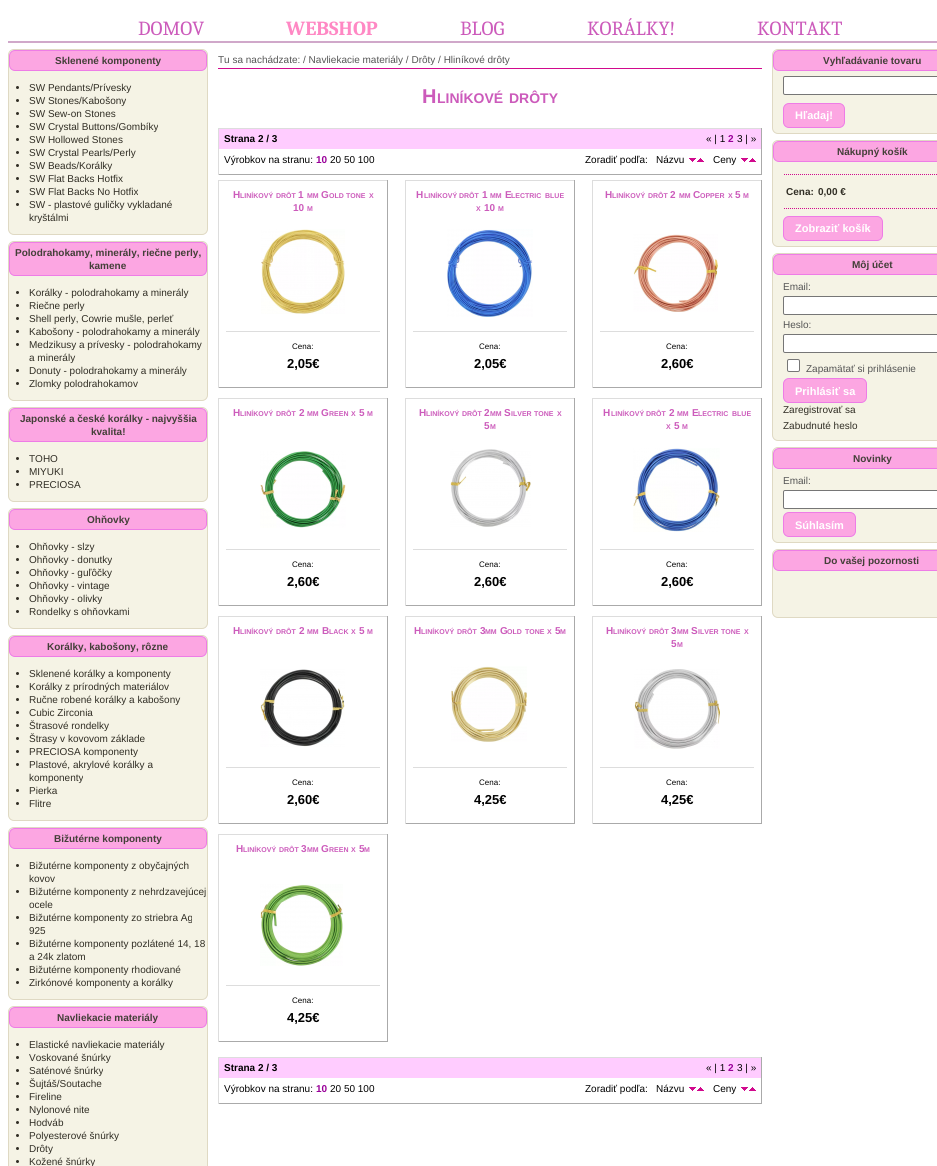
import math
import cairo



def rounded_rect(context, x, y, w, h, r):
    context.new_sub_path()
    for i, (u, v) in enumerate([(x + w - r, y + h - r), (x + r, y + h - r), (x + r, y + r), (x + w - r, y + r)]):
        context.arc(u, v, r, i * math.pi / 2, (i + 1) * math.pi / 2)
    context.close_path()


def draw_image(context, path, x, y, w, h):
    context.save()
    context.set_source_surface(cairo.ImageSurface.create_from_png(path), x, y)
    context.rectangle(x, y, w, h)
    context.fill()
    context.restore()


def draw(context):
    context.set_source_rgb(1, 1, 1)
    context.paint()
    context.set_source_rgb(208 / 255, 168 / 255, 202 / 255)
    context.rectangle(8, 41, 929, 2)
    context.fill()
    context.set_source_rgb(245 / 255, 243 / 255, 229 / 255)
    rounded_rect(context, 8.5, 49.5, 199, 185, 5.5)
    context.fill_preserve()
    context.set_source_rgb(223 / 255, 217 / 255, 195 / 255)
    context.set_line_width(1)
    context.stroke()
    context.set_source_rgb(252 / 255, 166 / 255, 226 / 255)
    rounded_rect(context, 9.5, 50.5, 197, 20, 5.5)
    context.fill_preserve()
    context.set_source_rgb(238 / 255, 124 / 255, 230 / 255)
    context.stroke()
    context.set_source_rgb(49 / 255, 46 / 255, 37 / 255)
    context.arc(17.5, 87.5, 1.5, 0, 2 * math.pi)
    context.fill()
    context.arc(17.5, 100.5, 1.5, 0, 2 * math.pi)
    context.fill()
    context.arc(17.5, 113.5, 1.5, 0, 2 * math.pi)
    context.fill()
    context.arc(17.5, 126.5, 1.5, 0, 2 * math.pi)
    context.fill()
    context.arc(17.5, 139.5, 1.5, 0, 2 * math.pi)
    context.fill()
    context.arc(17.5, 152.5, 1.5, 0, 2 * math.pi)
    context.fill()
    context.arc(17.5, 165.5, 1.5, 0, 2 * math.pi)
    context.fill()
    context.arc(17.5, 178.5, 1.5, 0, 2 * math.pi)
    context.fill()
    context.arc(17.5, 191.5, 1.5, 0, 2 * math.pi)
    context.fill()
    context.arc(17.5, 204.5, 1.5, 0, 2 * math.pi)
    context.fill()
    context.set_source_rgb(245 / 255, 243 / 255, 229 / 255)
    rounded_rect(context, 8.5, 241.5, 199, 159, 5.5)
    context.fill_preserve()
    context.set_source_rgb(223 / 255, 217 / 255, 195 / 255)
    context.stroke()
    context.set_source_rgb(252 / 255, 166 / 255, 226 / 255)
    rounded_rect(context, 9.5, 242.5, 197, 33, 5.5)
    context.fill_preserve()
    context.set_source_rgb(238 / 255, 124 / 255, 230 / 255)
    context.stroke()
    context.set_source_rgb(49 / 255, 46 / 255, 37 / 255)
    context.arc(17.5, 292.5, 1.5, 0, 2 * math.pi)
    context.fill()
    context.arc(17.5, 305.5, 1.5, 0, 2 * math.pi)
    context.fill()
    context.arc(17.5, 318.5, 1.5, 0, 2 * math.pi)
    context.fill()
    context.arc(17.5, 331.5, 1.5, 0, 2 * math.pi)
    context.fill()
    context.arc(17.5, 344.5, 1.5, 0, 2 * math.pi)
    context.fill()
    context.arc(17.5, 370.5, 1.5, 0, 2 * math.pi)
    context.fill()
    context.arc(17.5, 383.5, 1.5, 0, 2 * math.pi)
    context.fill()
    context.set_source_rgb(245 / 255, 243 / 255, 229 / 255)
    rounded_rect(context, 8.5, 407.5, 199, 94, 5.5)
    context.fill_preserve()
    context.set_source_rgb(223 / 255, 217 / 255, 195 / 255)
    context.stroke()
    context.set_source_rgb(252 / 255, 166 / 255, 226 / 255)
    rounded_rect(context, 9.5, 408.5, 197, 33, 5.5)
    context.fill_preserve()
    context.set_source_rgb(238 / 255, 124 / 255, 230 / 255)
    context.stroke()
    context.set_source_rgb(49 / 255, 46 / 255, 37 / 255)
    context.arc(17.5, 458.5, 1.5, 0, 2 * math.pi)
    context.fill()
    context.arc(17.5, 471.5, 1.5, 0, 2 * math.pi)
    context.fill()
    context.arc(17.5, 484.5, 1.5, 0, 2 * math.pi)
    context.fill()
    context.set_source_rgb(245 / 255, 243 / 255, 229 / 255)
    rounded_rect(context, 8.5, 508.5, 199, 120, 5.5)
    context.fill_preserve()
    context.set_source_rgb(223 / 255, 217 / 255, 195 / 255)
    context.stroke()
    context.set_source_rgb(252 / 255, 166 / 255, 226 / 255)
    rounded_rect(context, 9.5, 509.5, 197, 20, 5.5)
    context.fill_preserve()
    context.set_source_rgb(238 / 255, 124 / 255, 230 / 255)
    context.stroke()
    context.set_source_rgb(49 / 255, 46 / 255, 37 / 255)
    context.arc(17.5, 546.5, 1.5, 0, 2 * math.pi)
    context.fill()
    context.arc(17.5, 559.5, 1.5, 0, 2 * math.pi)
    context.fill()
    context.arc(17.5, 572.5, 1.5, 0, 2 * math.pi)
    context.fill()
    context.arc(17.5, 585.5, 1.5, 0, 2 * math.pi)
    context.fill()
    context.arc(17.5, 598.5, 1.5, 0, 2 * math.pi)
    context.fill()
    context.arc(17.5, 611.5, 1.5, 0, 2 * math.pi)
    context.fill()
    context.set_source_rgb(245 / 255, 243 / 255, 229 / 255)
    rounded_rect(context, 8.5, 635.5, 199, 185, 5.5)
    context.fill_preserve()
    context.set_source_rgb(223 / 255, 217 / 255, 195 / 255)
    context.stroke()
    context.set_source_rgb(252 / 255, 166 / 255, 226 / 255)
    rounded_rect(context, 9.5, 636.5, 197, 20, 5.5)
    context.fill_preserve()
    context.set_source_rgb(238 / 255, 124 / 255, 230 / 255)
    context.stroke()
    context.set_source_rgb(49 / 255, 46 / 255, 37 / 255)
    context.arc(17.5, 673.5, 1.5, 0, 2 * math.pi)
    context.fill()
    context.arc(17.5, 686.5, 1.5, 0, 2 * math.pi)
    context.fill()
    context.arc(17.5, 699.5, 1.5, 0, 2 * math.pi)
    context.fill()
    context.arc(17.5, 712.5, 1.5, 0, 2 * math.pi)
    context.fill()
    context.arc(17.5, 725.5, 1.5, 0, 2 * math.pi)
    context.fill()
    context.arc(17.5, 738.5, 1.5, 0, 2 * math.pi)
    context.fill()
    context.arc(17.5, 751.5, 1.5, 0, 2 * math.pi)
    context.fill()
    context.arc(17.5, 764.5, 1.5, 0, 2 * math.pi)
    context.fill()
    context.arc(17.5, 790.5, 1.5, 0, 2 * math.pi)
    context.fill()
    context.arc(17.5, 803.5, 1.5, 0, 2 * math.pi)
    context.fill()
    context.set_source_rgb(245 / 255, 243 / 255, 229 / 255)
    rounded_rect(context, 8.5, 827.5, 199, 172, 5.5)
    context.fill_preserve()
    context.set_source_rgb(223 / 255, 217 / 255, 195 / 255)
    context.stroke()
    context.set_source_rgb(252 / 255, 166 / 255, 226 / 255)
    rounded_rect(context, 9.5, 828.5, 197, 20, 5.5)
    context.fill_preserve()
    context.set_source_rgb(238 / 255, 124 / 255, 230 / 255)
    context.stroke()
    context.set_source_rgb(49 / 255, 46 / 255, 37 / 255)
    context.arc(17.5, 865.5, 1.5, 0, 2 * math.pi)
    context.fill()
    context.arc(17.5, 891.5, 1.5, 0, 2 * math.pi)
    context.fill()
    context.arc(17.5, 917.5, 1.5, 0, 2 * math.pi)
    context.fill()
    context.arc(17.5, 943.5, 1.5, 0, 2 * math.pi)
    context.fill()
    context.arc(17.5, 969.5, 1.5, 0, 2 * math.pi)
    context.fill()
    context.arc(17.5, 982.5, 1.5, 0, 2 * math.pi)
    context.fill()
    context.set_source_rgb(245 / 255, 243 / 255, 229 / 255)
    rounded_rect(context, 8.5, 1006.5, 199, 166, 5.5)
    context.fill_preserve()
    context.set_source_rgb(223 / 255, 217 / 255, 195 / 255)
    context.stroke()
    context.set_source_rgb(252 / 255, 166 / 255, 226 / 255)
    rounded_rect(context, 9.5, 1007.5, 197, 20, 5.5)
    context.fill_preserve()
    context.set_source_rgb(238 / 255, 124 / 255, 230 / 255)
    context.stroke()
    context.set_source_rgb(49 / 255, 46 / 255, 37 / 255)
    context.arc(17.5, 1044.5, 1.5, 0, 2 * math.pi)
    context.fill()
    context.arc(17.5, 1057.5, 1.5, 0, 2 * math.pi)
    context.fill()
    context.arc(17.5, 1070.5, 1.5, 0, 2 * math.pi)
    context.fill()
    context.arc(17.5, 1083.5, 1.5, 0, 2 * math.pi)
    context.fill()
    context.arc(17.5, 1096.5, 1.5, 0, 2 * math.pi)
    context.fill()
    context.arc(17.5, 1109.5, 1.5, 0, 2 * math.pi)
    context.fill()
    context.arc(17.5, 1122.5, 1.5, 0, 2 * math.pi)
    context.fill()
    context.arc(17.5, 1135.5, 1.5, 0, 2 * math.pi)
    context.fill()
    context.arc(17.5, 1148.5, 1.5, 0, 2 * math.pi)
    context.fill()
    context.arc(17.5, 1161.5, 1.5, 0, 2 * math.pi)
    context.fill()
    context.set_source_rgb(209 / 255, 9 / 255, 141 / 255)
    context.rectangle(218, 68, 544, 1)
    context.fill()
    context.set_source_rgb(221 / 255, 221 / 255, 221 / 255)
    context.rectangle(218, 128, 544, 1)
    context.fill()
    context.set_source_rgb(170 / 255, 170 / 255, 170 / 255)
    context.rectangle(761, 128, 1, 47)
    context.fill()
    context.rectangle(218, 174, 544, 1)
    context.fill()
    context.set_source_rgb(221 / 255, 221 / 255, 221 / 255)
    context.rectangle(218, 128, 1, 47)
    context.fill()
    context.set_source_rgb(1, 204 / 255, 1)
    context.rectangle(219, 129, 542, 20)
    context.fill()
    draw_image(context, "images/1.png", 689, 158, 15, 4)
    draw_image(context, "images/1.png", 741, 158, 15, 4)
    context.set_source_rgb(221 / 255, 221 / 255, 221 / 255)
    context.rectangle(218, 180, 170, 1)
    context.fill()
    context.set_source_rgb(170 / 255, 170 / 255, 170 / 255)
    context.rectangle(387, 180, 1, 208)
    context.fill()
    context.rectangle(218, 387, 170, 1)
    context.fill()
    context.set_source_rgb(221 / 255, 221 / 255, 221 / 255)
    context.rectangle(218, 180, 1, 208)
    context.fill()
    draw_image(context, "images/2.png", 261, 229, 84, 85)
    context.rectangle(226, 331, 154, 1)
    context.fill()
    context.rectangle(405, 180, 170, 1)
    context.fill()
    context.set_source_rgb(170 / 255, 170 / 255, 170 / 255)
    context.rectangle(574, 180, 1, 208)
    context.fill()
    context.rectangle(405, 387, 170, 1)
    context.fill()
    context.set_source_rgb(221 / 255, 221 / 255, 221 / 255)
    context.rectangle(405, 180, 1, 208)
    context.fill()
    draw_image(context, "images/3.png", 447, 229, 86, 88)
    context.rectangle(413, 331, 154, 1)
    context.fill()
    context.rectangle(592, 180, 170, 1)
    context.fill()
    context.set_source_rgb(170 / 255, 170 / 255, 170 / 255)
    context.rectangle(761, 180, 1, 208)
    context.fill()
    context.rectangle(592, 387, 170, 1)
    context.fill()
    context.set_source_rgb(221 / 255, 221 / 255, 221 / 255)
    context.rectangle(592, 180, 1, 208)
    context.fill()
    draw_image(context, "images/4.png", 633, 234, 85, 78)
    context.rectangle(600, 331, 154, 1)
    context.fill()
    context.rectangle(218, 398, 170, 1)
    context.fill()
    context.set_source_rgb(170 / 255, 170 / 255, 170 / 255)
    context.rectangle(387, 398, 1, 208)
    context.fill()
    context.rectangle(218, 605, 170, 1)
    context.fill()
    context.set_source_rgb(221 / 255, 221 / 255, 221 / 255)
    context.rectangle(218, 398, 1, 208)
    context.fill()
    draw_image(context, "images/5.png", 260, 451, 86, 77)
    context.rectangle(226, 549, 154, 1)
    context.fill()
    context.rectangle(405, 398, 170, 1)
    context.fill()
    context.set_source_rgb(170 / 255, 170 / 255, 170 / 255)
    context.rectangle(574, 398, 1, 208)
    context.fill()
    context.rectangle(405, 605, 170, 1)
    context.fill()
    context.set_source_rgb(221 / 255, 221 / 255, 221 / 255)
    context.rectangle(405, 398, 1, 208)
    context.fill()
    draw_image(context, "images/6.png", 450, 449, 81, 78)
    context.rectangle(413, 549, 154, 1)
    context.fill()
    context.rectangle(592, 398, 170, 1)
    context.fill()
    context.set_source_rgb(170 / 255, 170 / 255, 170 / 255)
    context.rectangle(761, 398, 1, 208)
    context.fill()
    context.rectangle(592, 605, 170, 1)
    context.fill()
    context.set_source_rgb(221 / 255, 221 / 255, 221 / 255)
    context.rectangle(592, 398, 1, 208)
    context.fill()
    draw_image(context, "images/7.png", 633, 448, 87, 84)
    context.rectangle(600, 549, 154, 1)
    context.fill()
    context.rectangle(218, 616, 170, 1)
    context.fill()
    context.set_source_rgb(170 / 255, 170 / 255, 170 / 255)
    context.rectangle(387, 616, 1, 208)
    context.fill()
    context.rectangle(218, 823, 170, 1)
    context.fill()
    context.set_source_rgb(221 / 255, 221 / 255, 221 / 255)
    context.rectangle(218, 616, 1, 208)
    context.fill()
    draw_image(context, "images/8.png", 260, 669, 85, 78)
    context.rectangle(226, 767, 154, 1)
    context.fill()
    context.rectangle(405, 616, 170, 1)
    context.fill()
    context.set_source_rgb(170 / 255, 170 / 255, 170 / 255)
    context.rectangle(574, 616, 1, 208)
    context.fill()
    context.rectangle(405, 823, 170, 1)
    context.fill()
    context.set_source_rgb(221 / 255, 221 / 255, 221 / 255)
    context.rectangle(405, 616, 1, 208)
    context.fill()
    draw_image(context, "images/9.png", 451, 666, 76, 76)
    context.rectangle(413, 767, 154, 1)
    context.fill()
    context.rectangle(592, 616, 170, 1)
    context.fill()
    context.set_source_rgb(170 / 255, 170 / 255, 170 / 255)
    context.rectangle(761, 616, 1, 208)
    context.fill()
    context.rectangle(592, 823, 170, 1)
    context.fill()
    context.set_source_rgb(221 / 255, 221 / 255, 221 / 255)
    context.rectangle(592, 616, 1, 208)
    context.fill()
    draw_image(context, "images/10.png", 634, 669, 86, 80)
    context.rectangle(600, 767, 154, 1)
    context.fill()
    context.rectangle(218, 834, 170, 1)
    context.fill()
    context.set_source_rgb(170 / 255, 170 / 255, 170 / 255)
    context.rectangle(387, 834, 1, 208)
    context.fill()
    context.rectangle(218, 1041, 170, 1)
    context.fill()
    context.set_source_rgb(221 / 255, 221 / 255, 221 / 255)
    context.rectangle(218, 834, 1, 208)
    context.fill()
    draw_image(context, "images/11.png", 260, 884, 83, 82)
    context.rectangle(226, 985, 154, 1)
    context.fill()
    context.rectangle(218, 1057, 544, 1)
    context.fill()
    context.set_source_rgb(170 / 255, 170 / 255, 170 / 255)
    context.rectangle(761, 1057, 1, 47)
    context.fill()
    context.rectangle(218, 1103, 544, 1)
    context.fill()
    context.set_source_rgb(221 / 255, 221 / 255, 221 / 255)
    context.rectangle(218, 1057, 1, 47)
    context.fill()
    context.set_source_rgb(1, 204 / 255, 1)
    context.rectangle(219, 1058, 542, 20)
    context.fill()
    draw_image(context, "images/1.png", 689, 1087, 15, 4)
    draw_image(context, "images/1.png", 741, 1087, 15, 4)
    context.set_source_rgb(245 / 255, 243 / 255, 229 / 255)
    rounded_rect(context, 772.5, 49.5, 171, 84, 5.5)
    context.fill_preserve()
    context.set_source_rgb(223 / 255, 217 / 255, 195 / 255)
    context.stroke()
    context.set_source_rgb(252 / 255, 166 / 255, 226 / 255)
    rounded_rect(context, 773.5, 50.5, 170, 20, 5.5)
    context.fill_preserve()
    context.set_source_rgb(238 / 255, 124 / 255, 230 / 255)
    context.stroke()
    context.set_source_rgb(1, 1, 1)
    rounded_rect(context, 783.5, 76.5, 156, 18, 1.5)
    context.fill_preserve()
    context.set_source_rgb(118 / 255, 118 / 255, 118 / 255)
    context.stroke()
    context.set_source_rgb(252 / 255, 166 / 255, 226 / 255)
    rounded_rect(context, 783.5, 103.5, 61, 24, 5.5)
    context.fill_preserve()
    context.set_source_rgb(238 / 255, 124 / 255, 230 / 255)
    context.stroke()
    context.set_source_rgb(245 / 255, 243 / 255, 229 / 255)
    rounded_rect(context, 772.5, 140.5, 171, 106, 5.5)
    context.fill_preserve()
    context.set_source_rgb(223 / 255, 217 / 255, 195 / 255)
    context.stroke()
    context.set_source_rgb(252 / 255, 166 / 255, 226 / 255)
    rounded_rect(context, 773.5, 141.5, 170, 20, 5.5)
    context.fill_preserve()
    context.set_source_rgb(238 / 255, 124 / 255, 230 / 255)
    context.stroke()
    draw_image(context, "images/12.png", 784, 174, 153, 1)
    draw_image(context, "images/12.png", 784, 208, 153, 1)
    context.set_source_rgb(252 / 255, 166 / 255, 226 / 255)
    rounded_rect(context, 783.5, 216.5, 99, 24, 5.5)
    context.fill_preserve()
    context.set_source_rgb(238 / 255, 124 / 255, 230 / 255)
    context.stroke()
    context.set_source_rgb(245 / 255, 243 / 255, 229 / 255)
    rounded_rect(context, 772.5, 253.5, 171, 187, 5.5)
    context.fill_preserve()
    context.set_source_rgb(223 / 255, 217 / 255, 195 / 255)
    context.stroke()
    context.set_source_rgb(252 / 255, 166 / 255, 226 / 255)
    rounded_rect(context, 773.5, 254.5, 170, 20, 5.5)
    context.fill_preserve()
    context.set_source_rgb(238 / 255, 124 / 255, 230 / 255)
    context.stroke()
    context.set_source_rgb(1, 1, 1)
    rounded_rect(context, 783.5, 296.5, 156, 18, 1.5)
    context.fill_preserve()
    context.set_source_rgb(118 / 255, 118 / 255, 118 / 255)
    context.stroke()
    context.set_source_rgb(1, 1, 1)
    rounded_rect(context, 783.5, 334.5, 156, 18, 1.5)
    context.fill_preserve()
    context.set_source_rgb(118 / 255, 118 / 255, 118 / 255)
    context.stroke()
    context.set_source_rgb(1, 1, 1)
    rounded_rect(context, 787.5, 359.5, 12, 12, 1.5)
    context.fill_preserve()
    context.set_source_rgb(118 / 255, 118 / 255, 118 / 255)
    context.stroke()
    context.set_source_rgb(252 / 255, 166 / 255, 226 / 255)
    rounded_rect(context, 783.5, 378.5, 83, 24, 5.5)
    context.fill_preserve()
    context.set_source_rgb(238 / 255, 124 / 255, 230 / 255)
    context.stroke()
    context.set_source_rgb(245 / 255, 243 / 255, 229 / 255)
    rounded_rect(context, 772.5, 447.5, 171, 95, 5.5)
    context.fill_preserve()
    context.set_source_rgb(223 / 255, 217 / 255, 195 / 255)
    context.stroke()
    context.set_source_rgb(252 / 255, 166 / 255, 226 / 255)
    rounded_rect(context, 773.5, 448.5, 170, 20, 5.5)
    context.fill_preserve()
    context.set_source_rgb(238 / 255, 124 / 255, 230 / 255)
    context.stroke()
    context.set_source_rgb(1, 1, 1)
    rounded_rect(context, 783.5, 490.5, 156, 18, 1.5)
    context.fill_preserve()
    context.set_source_rgb(118 / 255, 118 / 255, 118 / 255)
    context.stroke()
    context.set_source_rgb(252 / 255, 166 / 255, 226 / 255)
    rounded_rect(context, 783.5, 512.5, 72, 24, 5.5)
    context.fill_preserve()
    context.set_source_rgb(238 / 255, 124 / 255, 230 / 255)
    context.stroke()
    context.set_source_rgb(245 / 255, 243 / 255, 229 / 255)
    rounded_rect(context, 772.5, 549.5, 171, 68, 5.5)
    context.fill_preserve()
    context.set_source_rgb(223 / 255, 217 / 255, 195 / 255)
    context.stroke()
    context.set_source_rgb(252 / 255, 166 / 255, 226 / 255)
    rounded_rect(context, 773.5, 550.5, 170, 20, 5.5)
    context.fill_preserve()
    context.set_source_rgb(238 / 255, 124 / 255, 230 / 255)
    context.stroke()
    context.select_font_face("Caladea")
    context.set_font_size(20)
    context.set_source_rgb(204 / 255, 91 / 255, 187 / 255)
    context.move_to(138, 35)
    context.show_text("DOMOV")
    context.select_font_face("Caladea", cairo.FontSlant.NORMAL, cairo.FontWeight.BOLD)
    context.set_source_rgb(1, 136 / 255, 196 / 255)
    context.move_to(286, 35)
    context.show_text("WEBSHOP")
    context.select_font_face("Caladea")
    context.set_source_rgb(204 / 255, 91 / 255, 187 / 255)
    context.move_to(460, 35)
    context.show_text("BLOG")
    context.move_to(587, 35)
    context.show_text("KORÁLKY!")
    context.move_to(757, 35)
    context.show_text("KONTAKT")
    context.select_font_face("Liberation Sans", cairo.FontSlant.NORMAL, cairo.FontWeight.BOLD)
    context.set_font_size(10)
    context.set_source_rgb(67 / 255, 63 / 255, 56 / 255)
    context.move_to(55, 64)
    context.show_text("Sklenené komponenty")
    context.select_font_face("Liberation Sans")
    context.set_source_rgb(49 / 255, 46 / 255, 37 / 255)
    context.move_to(29, 91)
    context.show_text("SW Pendants/Prívesky")
    context.move_to(29, 104)
    context.show_text("SW Stones/Kabošony")
    context.move_to(29, 117)
    context.show_text("SW Sew-on Stones")
    context.move_to(29, 130)
    context.show_text("SW Crystal Buttons/Gombíky")
    context.move_to(29, 143)
    context.show_text("SW Hollowed Stones")
    context.move_to(29, 156)
    context.show_text("SW Crystal Pearls/Perly")
    context.move_to(29, 169)
    context.show_text("SW Beads/Korálky")
    context.move_to(29, 182)
    context.show_text("SW Flat Backs Hotfix")
    context.move_to(29, 195)
    context.show_text("SW Flat Backs No Hotfix")
    context.move_to(29, 208)
    context.show_text("SW - plastové guličky vykladané")
    context.move_to(29, 221)
    context.show_text("kryštálmi")
    context.select_font_face("Liberation Sans", cairo.FontSlant.NORMAL, cairo.FontWeight.BOLD)
    context.set_source_rgb(67 / 255, 63 / 255, 56 / 255)
    context.move_to(15, 256)
    context.show_text("Polodrahokamy, minerály, riečne perly,")
    context.move_to(89, 269)
    context.show_text("kamene")
    context.select_font_face("Liberation Sans")
    context.set_source_rgb(49 / 255, 46 / 255, 37 / 255)
    context.move_to(29, 296)
    context.show_text("Korálky - polodrahokamy a minerály")
    context.move_to(29, 309)
    context.show_text("Riečne perly")
    context.move_to(29, 322)
    context.show_text("Shell perly, Cowrie mušle, perleť")
    context.move_to(29, 335)
    context.show_text("Kabošony - polodrahokamy a minerály")
    context.move_to(29, 348)
    context.show_text("Medzikusy a prívesky - polodrahokamy")
    context.move_to(29, 361)
    context.show_text("a minerály")
    context.move_to(29, 374)
    context.show_text("Donuty - polodrahokamy a minerály")
    context.move_to(29, 387)
    context.show_text("Zlomky polodrahokamov")
    context.select_font_face("Liberation Sans", cairo.FontSlant.NORMAL, cairo.FontWeight.BOLD)
    context.set_source_rgb(67 / 255, 63 / 255, 56 / 255)
    context.move_to(20, 422)
    context.show_text("Japonské a české korálky - najvyššia")
    context.move_to(91, 435)
    context.show_text("kvalita!")
    context.select_font_face("Liberation Sans")
    context.set_source_rgb(49 / 255, 46 / 255, 37 / 255)
    context.move_to(29, 462)
    context.show_text("TOHO")
    context.move_to(29, 475)
    context.show_text("MIYUKI")
    context.move_to(29, 488)
    context.show_text("PRECIOSA")
    context.select_font_face("Liberation Sans", cairo.FontSlant.NORMAL, cairo.FontWeight.BOLD)
    context.set_source_rgb(67 / 255, 63 / 255, 56 / 255)
    context.move_to(87, 523)
    context.show_text("Ohňovky")
    context.select_font_face("Liberation Sans")
    context.set_source_rgb(49 / 255, 46 / 255, 37 / 255)
    context.move_to(29, 550)
    context.show_text("Ohňovky - slzy")
    context.move_to(29, 563)
    context.show_text("Ohňovky - donutky")
    context.move_to(29, 576)
    context.show_text("Ohňovky - guľôčky")
    context.move_to(29, 589)
    context.show_text("Ohňovky - vintage")
    context.move_to(29, 602)
    context.show_text("Ohňovky - olivky")
    context.move_to(29, 615)
    context.show_text("Rondelky s ohňovkami")
    context.select_font_face("Liberation Sans", cairo.FontSlant.NORMAL, cairo.FontWeight.BOLD)
    context.set_source_rgb(67 / 255, 63 / 255, 56 / 255)
    context.move_to(47, 650)
    context.show_text("Korálky, kabošony, rôzne")
    context.select_font_face("Liberation Sans")
    context.set_source_rgb(49 / 255, 46 / 255, 37 / 255)
    context.move_to(29, 677)
    context.show_text("Sklenené korálky a komponenty")
    context.move_to(29, 690)
    context.show_text("Korálky z prírodných materiálov")
    context.move_to(29, 703)
    context.show_text("Ručne robené korálky a kabošony")
    context.move_to(29, 716)
    context.show_text("Cubic Zirconia")
    context.move_to(29, 729)
    context.show_text("Štrasové rondelky")
    context.move_to(29, 742)
    context.show_text("Štrasy v kovovom základe")
    context.move_to(29, 755)
    context.show_text("PRECIOSA komponenty")
    context.move_to(29, 768)
    context.show_text("Plastové, akrylové korálky a")
    context.move_to(29, 781)
    context.show_text("komponenty")
    context.move_to(29, 794)
    context.show_text("Pierka")
    context.move_to(29, 807)
    context.show_text("Flitre")
    context.select_font_face("Liberation Sans", cairo.FontSlant.NORMAL, cairo.FontWeight.BOLD)
    context.set_source_rgb(67 / 255, 63 / 255, 56 / 255)
    context.move_to(54, 842)
    context.show_text("Bižutérne komponenty")
    context.select_font_face("Liberation Sans")
    context.set_source_rgb(49 / 255, 46 / 255, 37 / 255)
    context.move_to(29, 869)
    context.show_text("Bižutérne komponenty z obyčajných")
    context.move_to(29, 882)
    context.show_text("kovov")
    context.move_to(29, 895)
    context.show_text("Bižutérne komponenty z nehrdzavejúcej")
    context.move_to(29, 908)
    context.show_text("ocele")
    context.move_to(29, 921)
    context.show_text("Bižutérne komponenty zo striebra Ag")
    context.move_to(29, 934)
    context.show_text("925")
    context.move_to(29, 947)
    context.show_text("Bižutérne komponenty pozlátené 14, 18")
    context.move_to(29, 960)
    context.show_text("a 24k zlatom")
    context.move_to(29, 973)
    context.show_text("Bižutérne komponenty rhodiované")
    context.move_to(29, 986)
    context.show_text("Zirkónové komponenty a korálky")
    context.select_font_face("Liberation Sans", cairo.FontSlant.NORMAL, cairo.FontWeight.BOLD)
    context.set_source_rgb(67 / 255, 63 / 255, 56 / 255)
    context.move_to(57, 1021)
    context.show_text("Navliekacie materiály")
    context.select_font_face("Liberation Sans")
    context.set_source_rgb(49 / 255, 46 / 255, 37 / 255)
    context.move_to(29, 1048)
    context.show_text("Elastické navliekacie materiály")
    context.move_to(29, 1061)
    context.show_text("Voskované šnúrky")
    context.move_to(29, 1074)
    context.show_text("Saténové šnúrky")
    context.move_to(29, 1087)
    context.show_text("Šujtáš/Soutache")
    context.move_to(29, 1100)
    context.show_text("Fireline")
    context.move_to(29, 1113)
    context.show_text("Nylonové nite")
    context.move_to(29, 1126)
    context.show_text("Hodváb")
    context.move_to(29, 1139)
    context.show_text("Polyesterové šnúrky")
    context.move_to(29, 1152)
    context.show_text("Drôty")
    context.move_to(29, 1165)
    context.show_text("Kožené šnúrky")
    context.set_source_rgb(85 / 255, 85 / 255, 85 / 255)
    context.move_to(218, 63)
    context.show_text("Tu sa nachádzate: / Navliekacie materiály / Drôty / Hliníkové drôty")
    context.select_font_face("Liberation Sans", cairo.FontSlant.NORMAL, cairo.FontWeight.BOLD)
    context.set_font_size(20)
    context.set_source_rgb(204 / 255, 91 / 255, 187 / 255)
    context.move_to(422, 103)
    context.show_text("H")
    context.set_font_size(14)
    context.move_to(437, 103)
    context.show_text("LINÍKOVÉ")
    context.move_to(509, 103)
    context.show_text("DRÔTY")
    context.set_font_size(10)
    context.set_source_rgb(0, 0, 0)
    context.move_to(224, 142)
    context.show_text("Strana 2 / 3")
    context.select_font_face("Liberation Sans")
    context.move_to(706, 142)
    context.show_text("« | 1")
    context.select_font_face("Liberation Sans", cairo.FontSlant.NORMAL, cairo.FontWeight.BOLD)
    context.set_source_rgb(153 / 255, 0, 153 / 255)
    context.move_to(728, 142)
    context.show_text("2")
    context.select_font_face("Liberation Sans")
    context.set_source_rgb(0, 0, 0)
    context.move_to(737, 142)
    context.show_text("3 | »")
    context.move_to(224, 163)
    context.show_text("Výrobkov na stranu:")
    context.select_font_face("Liberation Sans", cairo.FontSlant.NORMAL, cairo.FontWeight.BOLD)
    context.set_source_rgb(153 / 255, 0, 153 / 255)
    context.move_to(316, 163)
    context.show_text("10")
    context.select_font_face("Liberation Sans")
    context.set_source_rgb(0, 0, 0)
    context.move_to(330, 163)
    context.show_text("20 50 100")
    context.move_to(585, 163)
    context.show_text("Zoradiť podľa:")
    context.move_to(656, 163)
    context.show_text("Názvu")
    context.move_to(713, 163)
    context.show_text("Ceny")
    context.select_font_face("Liberation Sans", cairo.FontSlant.NORMAL, cairo.FontWeight.BOLD)
    context.set_source_rgb(204 / 255, 91 / 255, 187 / 255)
    context.move_to(233, 198)
    context.show_text("H")
    context.set_font_size(7)
    context.move_to(240, 198)
    context.show_text("LINÍKOVÝ")
    context.move_to(276, 198)
    context.show_text("DRÔT")
    context.set_font_size(10)
    context.move_to(298, 198)
    context.show_text("1")
    context.set_font_size(7)
    context.move_to(307, 198)
    context.show_text("MM")
    context.set_font_size(10)
    context.move_to(321, 198)
    context.show_text("G")
    context.set_font_size(7)
    context.move_to(329, 198)
    context.show_text("OLD")
    context.move_to(346, 198)
    context.show_text("TONE")
    context.move_to(369, 198)
    context.show_text("X")
    context.set_font_size(10)
    context.move_to(293, 211)
    context.show_text("10")
    context.set_font_size(7)
    context.move_to(307, 211)
    context.show_text("M")
    context.select_font_face("Liberation Sans")
    context.set_font_size(8)
    context.set_source_rgb(0, 0, 0)
    context.move_to(292, 349)
    context.show_text("Cena:")
    context.select_font_face("Liberation Sans", cairo.FontSlant.NORMAL, cairo.FontWeight.BOLD)
    context.set_font_size(13)
    context.move_to(287, 368)
    context.show_text("2,05€")
    context.set_font_size(10)
    context.set_source_rgb(204 / 255, 91 / 255, 187 / 255)
    context.move_to(416, 198)
    context.show_text("H")
    context.set_font_size(7)
    context.move_to(424, 198)
    context.show_text("LINÍKOVÝ")
    context.move_to(459, 198)
    context.show_text("DRÔT")
    context.set_font_size(10)
    context.move_to(482, 198)
    context.show_text("1")
    context.set_font_size(7)
    context.move_to(490, 198)
    context.show_text("MM")
    context.set_font_size(10)
    context.move_to(505, 198)
    context.show_text("E")
    context.set_font_size(7)
    context.move_to(511, 198)
    context.show_text("LECTRIC")
    context.move_to(545, 198)
    context.show_text("BLUE")
    context.move_to(476, 211)
    context.show_text("X")
    context.set_font_size(10)
    context.move_to(484, 211)
    context.show_text("10")
    context.set_font_size(7)
    context.move_to(498, 211)
    context.show_text("M")
    context.select_font_face("Liberation Sans")
    context.set_font_size(8)
    context.set_source_rgb(0, 0, 0)
    context.move_to(479, 349)
    context.show_text("Cena:")
    context.select_font_face("Liberation Sans", cairo.FontSlant.NORMAL, cairo.FontWeight.BOLD)
    context.set_font_size(13)
    context.move_to(474, 368)
    context.show_text("2,05€")
    context.set_font_size(10)
    context.set_source_rgb(204 / 255, 91 / 255, 187 / 255)
    context.move_to(605, 198)
    context.show_text("H")
    context.set_font_size(7)
    context.move_to(612, 198)
    context.show_text("LINÍKOVÝ")
    context.move_to(648, 198)
    context.show_text("DRÔT")
    context.set_font_size(10)
    context.move_to(670, 198)
    context.show_text("2")
    context.set_font_size(7)
    context.move_to(679, 198)
    context.show_text("MM")
    context.set_font_size(10)
    context.move_to(693, 198)
    context.show_text("C")
    context.set_font_size(7)
    context.move_to(700, 198)
    context.show_text("OPPER")
    context.move_to(728, 198)
    context.show_text("X")
    context.set_font_size(10)
    context.move_to(735, 198)
    context.show_text("5")
    context.set_font_size(7)
    context.move_to(743, 198)
    context.show_text("M")
    context.select_font_face("Liberation Sans")
    context.set_font_size(8)
    context.set_source_rgb(0, 0, 0)
    context.move_to(666, 349)
    context.show_text("Cena:")
    context.select_font_face("Liberation Sans", cairo.FontSlant.NORMAL, cairo.FontWeight.BOLD)
    context.set_font_size(13)
    context.move_to(661, 368)
    context.show_text("2,60€")
    context.set_font_size(10)
    context.set_source_rgb(204 / 255, 91 / 255, 187 / 255)
    context.move_to(233, 416)
    context.show_text("H")
    context.set_font_size(7)
    context.move_to(240, 416)
    context.show_text("LINÍKOVÝ")
    context.move_to(276, 416)
    context.show_text("DRÔT")
    context.set_font_size(10)
    context.move_to(299, 416)
    context.show_text("2")
    context.set_font_size(7)
    context.move_to(307, 416)
    context.show_text("MM")
    context.set_font_size(10)
    context.move_to(321, 416)
    context.show_text("G")
    context.set_font_size(7)
    context.move_to(329, 416)
    context.show_text("REEN")
    context.move_to(351, 416)
    context.show_text("X")
    context.set_font_size(10)
    context.move_to(359, 416)
    context.show_text("5")
    context.set_font_size(7)
    context.move_to(367, 416)
    context.show_text("M")
    context.select_font_face("Liberation Sans")
    context.set_font_size(8)
    context.set_source_rgb(0, 0, 0)
    context.move_to(292, 567)
    context.show_text("Cena:")
    context.select_font_face("Liberation Sans", cairo.FontSlant.NORMAL, cairo.FontWeight.BOLD)
    context.set_font_size(13)
    context.move_to(287, 586)
    context.show_text("2,60€")
    context.set_font_size(10)
    context.set_source_rgb(204 / 255, 91 / 255, 187 / 255)
    context.move_to(419, 416)
    context.show_text("H")
    context.set_font_size(7)
    context.move_to(426, 416)
    context.show_text("LINÍKOVÝ")
    context.move_to(462, 416)
    context.show_text("DRÔT")
    context.set_font_size(10)
    context.move_to(484, 416)
    context.show_text("2")
    context.set_font_size(7)
    context.move_to(490, 416)
    context.show_text("MM")
    context.set_font_size(10)
    context.move_to(504, 416)
    context.show_text("S")
    context.set_font_size(7)
    context.move_to(511, 416)
    context.show_text("ILVER")
    context.move_to(534, 416)
    context.show_text("TONE")
    context.move_to(557, 416)
    context.show_text("X")
    context.set_font_size(10)
    context.move_to(484, 429)
    context.show_text("5")
    context.set_font_size(7)
    context.move_to(490, 429)
    context.show_text("M")
    context.select_font_face("Liberation Sans")
    context.set_font_size(8)
    context.set_source_rgb(0, 0, 0)
    context.move_to(479, 567)
    context.show_text("Cena:")
    context.select_font_face("Liberation Sans", cairo.FontSlant.NORMAL, cairo.FontWeight.BOLD)
    context.set_font_size(13)
    context.move_to(474, 586)
    context.show_text("2,60€")
    context.set_font_size(10)
    context.set_source_rgb(204 / 255, 91 / 255, 187 / 255)
    context.move_to(603, 416)
    context.show_text("H")
    context.set_font_size(7)
    context.move_to(611, 416)
    context.show_text("LINÍKOVÝ")
    context.move_to(646, 416)
    context.show_text("DRÔT")
    context.set_font_size(10)
    context.move_to(669, 416)
    context.show_text("2")
    context.set_font_size(7)
    context.move_to(677, 416)
    context.show_text("MM")
    context.set_font_size(10)
    context.move_to(692, 416)
    context.show_text("E")
    context.set_font_size(7)
    context.move_to(698, 416)
    context.show_text("LECTRIC")
    context.move_to(732, 416)
    context.show_text("BLUE")
    context.move_to(666, 429)
    context.show_text("X")
    context.set_font_size(10)
    context.move_to(674, 429)
    context.show_text("5")
    context.set_font_size(7)
    context.move_to(682, 429)
    context.show_text("M")
    context.select_font_face("Liberation Sans")
    context.set_font_size(8)
    context.set_source_rgb(0, 0, 0)
    context.move_to(666, 567)
    context.show_text("Cena:")
    context.select_font_face("Liberation Sans", cairo.FontSlant.NORMAL, cairo.FontWeight.BOLD)
    context.set_font_size(13)
    context.move_to(661, 586)
    context.show_text("2,60€")
    context.set_font_size(10)
    context.set_source_rgb(204 / 255, 91 / 255, 187 / 255)
    context.move_to(233, 634)
    context.show_text("H")
    context.set_font_size(7)
    context.move_to(240, 634)
    context.show_text("LINÍKOVÝ")
    context.move_to(276, 634)
    context.show_text("DRÔT")
    context.set_font_size(10)
    context.move_to(299, 634)
    context.show_text("2")
    context.set_font_size(7)
    context.move_to(307, 634)
    context.show_text("MM")
    context.set_font_size(10)
    context.move_to(322, 634)
    context.show_text("B")
    context.set_font_size(7)
    context.move_to(329, 634)
    context.show_text("LACK")
    context.move_to(351, 634)
    context.show_text("X")
    context.set_font_size(10)
    context.move_to(359, 634)
    context.show_text("5")
    context.set_font_size(7)
    context.move_to(367, 634)
    context.show_text("M")
    context.select_font_face("Liberation Sans")
    context.set_font_size(8)
    context.set_source_rgb(0, 0, 0)
    context.move_to(292, 785)
    context.show_text("Cena:")
    context.select_font_face("Liberation Sans", cairo.FontSlant.NORMAL, cairo.FontWeight.BOLD)
    context.set_font_size(13)
    context.move_to(287, 804)
    context.show_text("2,60€")
    context.set_font_size(10)
    context.set_source_rgb(204 / 255, 91 / 255, 187 / 255)
    context.move_to(414, 634)
    context.show_text("H")
    context.set_font_size(7)
    context.move_to(421, 634)
    context.show_text("LINÍKOVÝ")
    context.move_to(457, 634)
    context.show_text("DRÔT")
    context.set_font_size(10)
    context.move_to(480, 634)
    context.show_text("3")
    context.set_font_size(7)
    context.move_to(485, 634)
    context.show_text("MM")
    context.set_font_size(10)
    context.move_to(500, 634)
    context.show_text("G")
    context.set_font_size(7)
    context.move_to(507, 634)
    context.show_text("OLD")
    context.move_to(525, 634)
    context.show_text("TONE")
    context.move_to(547, 634)
    context.show_text("X")
    context.set_font_size(10)
    context.move_to(555, 634)
    context.show_text("5")
    context.set_font_size(7)
    context.move_to(560, 634)
    context.show_text("M")
    context.select_font_face("Liberation Sans")
    context.set_font_size(8)
    context.set_source_rgb(0, 0, 0)
    context.move_to(479, 785)
    context.show_text("Cena:")
    context.select_font_face("Liberation Sans", cairo.FontSlant.NORMAL, cairo.FontWeight.BOLD)
    context.set_font_size(13)
    context.move_to(474, 804)
    context.show_text("4,25€")
    context.set_font_size(10)
    context.set_source_rgb(204 / 255, 91 / 255, 187 / 255)
    context.move_to(606, 634)
    context.show_text("H")
    context.set_font_size(7)
    context.move_to(613, 634)
    context.show_text("LINÍKOVÝ")
    context.move_to(649, 634)
    context.show_text("DRÔT")
    context.set_font_size(10)
    context.move_to(671, 634)
    context.show_text("3")
    context.set_font_size(7)
    context.move_to(677, 634)
    context.show_text("MM")
    context.set_font_size(10)
    context.move_to(691, 634)
    context.show_text("S")
    context.set_font_size(7)
    context.move_to(698, 634)
    context.show_text("ILVER")
    context.move_to(721, 634)
    context.show_text("TONE")
    context.move_to(744, 634)
    context.show_text("X")
    context.set_font_size(10)
    context.move_to(671, 647)
    context.show_text("5")
    context.set_font_size(7)
    context.move_to(677, 647)
    context.show_text("M")
    context.select_font_face("Liberation Sans")
    context.set_font_size(8)
    context.set_source_rgb(0, 0, 0)
    context.move_to(666, 785)
    context.show_text("Cena:")
    context.select_font_face("Liberation Sans", cairo.FontSlant.NORMAL, cairo.FontWeight.BOLD)
    context.set_font_size(13)
    context.move_to(661, 804)
    context.show_text("4,25€")
    context.set_font_size(10)
    context.set_source_rgb(204 / 255, 91 / 255, 187 / 255)
    context.move_to(236, 852)
    context.show_text("H")
    context.set_font_size(7)
    context.move_to(243, 852)
    context.show_text("LINÍKOVÝ")
    context.move_to(279, 852)
    context.show_text("DRÔT")
    context.set_font_size(10)
    context.move_to(301, 852)
    context.show_text("3")
    context.set_font_size(7)
    context.move_to(307, 852)
    context.show_text("MM")
    context.set_font_size(10)
    context.move_to(321, 852)
    context.show_text("G")
    context.set_font_size(7)
    context.move_to(329, 852)
    context.show_text("REEN")
    context.move_to(351, 852)
    context.show_text("X")
    context.set_font_size(10)
    context.move_to(359, 852)
    context.show_text("5")
    context.set_font_size(7)
    context.move_to(364, 852)
    context.show_text("M")
    context.select_font_face("Liberation Sans")
    context.set_font_size(8)
    context.set_source_rgb(0, 0, 0)
    context.move_to(292, 1003)
    context.show_text("Cena:")
    context.select_font_face("Liberation Sans", cairo.FontSlant.NORMAL, cairo.FontWeight.BOLD)
    context.set_font_size(13)
    context.move_to(287, 1022)
    context.show_text("4,25€")
    context.set_font_size(10)
    context.move_to(224, 1071)
    context.show_text("Strana 2 / 3")
    context.select_font_face("Liberation Sans")
    context.move_to(706, 1071)
    context.show_text("« | 1")
    context.select_font_face("Liberation Sans", cairo.FontSlant.NORMAL, cairo.FontWeight.BOLD)
    context.set_source_rgb(153 / 255, 0, 153 / 255)
    context.move_to(728, 1071)
    context.show_text("2")
    context.select_font_face("Liberation Sans")
    context.set_source_rgb(0, 0, 0)
    context.move_to(737, 1071)
    context.show_text("3 | »")
    context.move_to(224, 1092)
    context.show_text("Výrobkov na stranu:")
    context.select_font_face("Liberation Sans", cairo.FontSlant.NORMAL, cairo.FontWeight.BOLD)
    context.set_source_rgb(153 / 255, 0, 153 / 255)
    context.move_to(316, 1092)
    context.show_text("10")
    context.select_font_face("Liberation Sans")
    context.set_source_rgb(0, 0, 0)
    context.move_to(330, 1092)
    context.show_text("20 50 100")
    context.move_to(585, 1092)
    context.show_text("Zoradiť podľa:")
    context.move_to(656, 1092)
    context.show_text("Názvu")
    context.move_to(713, 1092)
    context.show_text("Ceny")
    context.select_font_face("Liberation Sans", cairo.FontSlant.NORMAL, cairo.FontWeight.BOLD)
    context.set_source_rgb(67 / 255, 63 / 255, 56 / 255)
    context.move_to(823, 64)
    context.show_text("Vyhľadávanie tovaru")
    context.set_font_size(11)
    context.set_source_rgb(1, 1, 1)
    context.move_to(795, 119)
    context.show_text("Hľadaj!")
    context.set_font_size(10)
    context.set_source_rgb(67 / 255, 63 / 255, 56 / 255)
    context.move_to(837, 155)
    context.show_text("Nákupný košík")
    context.set_source_rgb(49 / 255, 46 / 255, 37 / 255)
    context.move_to(786, 195)
    context.show_text("Cena:")
    context.move_to(818, 195)
    context.show_text("0,00 €")
    context.set_font_size(11)
    context.set_source_rgb(1, 1, 1)
    context.move_to(795, 232)
    context.show_text("Zobraziť košík")
    context.set_font_size(10)
    context.set_source_rgb(67 / 255, 63 / 255, 56 / 255)
    context.move_to(852, 268)
    context.show_text("Môj účet")
    context.select_font_face("Liberation Sans")
    context.set_source_rgb(85 / 255, 85 / 255, 85 / 255)
    context.move_to(783, 290)
    context.show_text("Email:")
    context.move_to(783, 328)
    context.show_text("Heslo:")
    context.move_to(806, 372)
    context.show_text("Zapamätať si prihlásenie")
    context.select_font_face("Liberation Sans", cairo.FontSlant.NORMAL, cairo.FontWeight.BOLD)
    context.set_font_size(11)
    context.set_source_rgb(1, 1, 1)
    context.move_to(795, 395)
    context.show_text("Prihlásiť sa")
    context.select_font_face("Liberation Sans")
    context.set_font_size(10)
    context.set_source_rgb(49 / 255, 46 / 255, 37 / 255)
    context.move_to(783, 413)
    context.show_text("Zaregistrovať sa")
    context.move_to(783, 429)
    context.show_text("Zabudnuté heslo")
    context.select_font_face("Liberation Sans", cairo.FontSlant.NORMAL, cairo.FontWeight.BOLD)
    context.set_source_rgb(67 / 255, 63 / 255, 56 / 255)
    context.move_to(853, 462)
    context.show_text("Novinky")
    context.select_font_face("Liberation Sans")
    context.set_source_rgb(85 / 255, 85 / 255, 85 / 255)
    context.move_to(783, 484)
    context.show_text("Email:")
    context.select_font_face("Liberation Sans", cairo.FontSlant.NORMAL, cairo.FontWeight.BOLD)
    context.set_font_size(11)
    context.set_source_rgb(1, 1, 1)
    context.move_to(795, 529)
    context.show_text("Súhlasím")
    context.set_font_size(10)
    context.set_source_rgb(67 / 255, 63 / 255, 56 / 255)
    context.move_to(824, 564)
    context.show_text("Do vašej pozornosti")


surface = cairo.ImageSurface(cairo.Format.RGB24, 937, 1166)
context = cairo.Context(surface)
options = cairo.FontOptions()
options.set_hint_metrics(cairo.HintMetrics.OFF)
options.set_hint_style(cairo.HintStyle.NONE)
context.set_font_options(options)
context.set_miter_limit(4)
draw(context)
surface.write_to_png("out.png")
